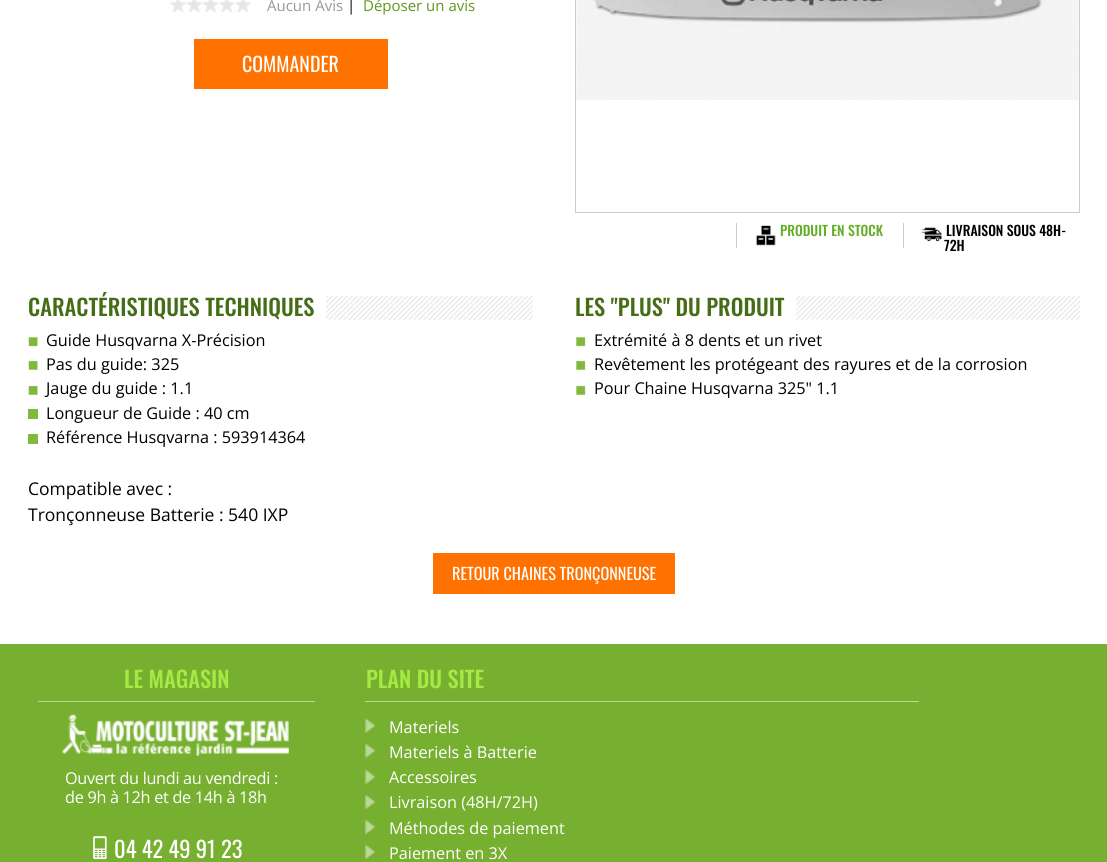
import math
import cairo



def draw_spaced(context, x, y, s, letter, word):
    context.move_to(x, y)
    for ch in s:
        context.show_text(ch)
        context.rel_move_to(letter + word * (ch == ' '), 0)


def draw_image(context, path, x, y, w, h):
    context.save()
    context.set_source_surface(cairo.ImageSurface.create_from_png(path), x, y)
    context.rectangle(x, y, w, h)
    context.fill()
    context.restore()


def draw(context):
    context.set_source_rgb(1, 1, 1)
    context.paint()
    draw_image(context, "images/1.png", 170, 0, 81, 13)
    context.set_source_rgb(1, 114 / 255, 0)
    context.rectangle(194, 39, 194, 50)
    context.fill()
    context.rectangle(575.5, -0.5, 504, 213)
    context.set_source_rgb(204 / 255, 204 / 255, 204 / 255)
    context.set_line_width(1)
    context.stroke()
    draw_image(context, "images/2.png", 576, 0, 503, 100)
    context.rectangle(736, 223, 1, 25)
    context.fill()
    context.rectangle(903, 223, 1, 25)
    context.fill()
    draw_image(context, "images/3.png", 756, 225, 20, 21)
    draw_image(context, "images/4.png", 921, 227, 21, 15)
    draw_image(context, "images/5.png", 27, 296, 506, 24)
    context.set_source_rgb(1, 1, 1)
    context.rectangle(28, 296, 298, 24)
    context.fill()
    draw_image(context, "images/6.png", 28, 337, 10, 10)
    draw_image(context, "images/7.png", 28, 360, 10, 10)
    draw_image(context, "images/7.png", 28, 385, 10, 10)
    context.set_source_rgb(129 / 255, 185 / 255, 60 / 255)
    context.rectangle(28, 409, 10, 10)
    context.fill()
    context.rectangle(28, 434, 10, 10)
    context.fill()
    draw_image(context, "images/8.png", 796, 296, 284, 24)
    draw_image(context, "images/9.png", 576, 337, 10, 10)
    draw_image(context, "images/10.png", 576, 360, 10, 10)
    draw_image(context, "images/10.png", 576, 385, 10, 10)
    context.set_source_rgb(1, 114 / 255, 0)
    context.rectangle(433, 553, 242, 41)
    context.fill()
    context.set_source_rgb(119 / 255, 176 / 255, 48 / 255)
    context.rectangle(0, 644, 1107, 218)
    context.fill()
    context.set_source_rgb(187 / 255, 216 / 255, 152 / 255)
    context.rectangle(38, 701, 277, 1)
    context.fill()
    draw_image(context, "images/11.png", 62, 714, 227, 42)
    draw_image(context, "images/12.png", 93, 836, 14, 24)
    context.rectangle(365, 701, 554, 1)
    context.fill()
    draw_image(context, "images/13.png", 365, 718, 11, 16)
    draw_image(context, "images/13.png", 365, 743, 11, 16)
    draw_image(context, "images/14.png", 365, 769, 11, 16)
    draw_image(context, "images/14.png", 365, 794, 11, 16)
    draw_image(context, "images/14.png", 365, 819, 11, 16)
    draw_image(context, "images/14.png", 365, 844, 11, 16)
    context.select_font_face("Open Sans")
    context.set_font_size(15)
    context.set_source_rgb(153 / 255, 153 / 255, 153 / 255)
    context.move_to(267, 11)
    context.show_text("Aucun Avis")
    context.set_source_rgb(0, 0, 0)
    context.move_to(347, 11)
    context.show_text("|")
    context.set_source_rgb(95 / 255, 151 / 255, 26 / 255)
    context.move_to(363, 11)
    context.show_text("Déposer un avis")
    context.select_font_face("Oswald")
    context.set_font_size(20)
    context.set_source_rgb(1, 1, 1)
    context.move_to(242, 72)
    context.show_text("COMMANDER")
    context.select_font_face("Oswald Medium")
    context.set_font_size(13.75)
    context.set_source_rgb(100 / 255, 174 / 255, 40 / 255)
    context.move_to(780, 236)
    context.show_text("PRODUIT EN STOCK")
    context.set_source_rgb(0, 0, 0)
    context.move_to(946, 236)
    context.show_text("LIVRAISON SOUS 48H-")
    context.move_to(944, 251)
    context.show_text("72H")
    context.set_font_size(22.5)
    context.set_source_rgb(69 / 255, 109 / 255, 22 / 255)
    context.move_to(28, 316)
    context.show_text("CARACTÉRISTIQUES TECHNIQUES")
    context.select_font_face("Open Sans")
    context.set_font_size(16.25)
    context.set_source_rgb(0, 0, 0)
    context.move_to(46, 346)
    context.show_text("Guide Husqvarna X-Précision")
    context.move_to(46, 370)
    context.show_text("Pas du guide: 325")
    context.move_to(46, 394)
    context.show_text("Jauge du guide : 1.1")
    context.move_to(46, 419)
    context.show_text("Longueur de Guide : 40 cm")
    context.move_to(46, 443)
    context.show_text("Référence Husqvarna : 593914364")
    context.select_font_face("Oswald Medium")
    context.set_font_size(22.5)
    context.set_source_rgb(69 / 255, 109 / 255, 22 / 255)
    context.move_to(575, 316)
    context.show_text("LES \"PLUS\" DU PRODUIT")
    context.select_font_face("Open Sans")
    context.set_font_size(16.25)
    context.set_source_rgb(0, 0, 0)
    context.move_to(594, 346)
    context.show_text("Extrémité à 8 dents et un rivet")
    context.move_to(594, 370)
    context.show_text("Revêtement les protégeant des rayures et de la corrosion")
    context.move_to(594, 394)
    context.show_text("Pour Chaine Husqvarna 325\" 1.1")
    context.set_font_size(17.5)
    context.move_to(28, 495)
    context.show_text("Compatible avec :")
    context.move_to(28, 521)
    context.show_text("Tronçonneuse Batterie : 540 IXP")
    context.select_font_face("Oswald")
    context.set_font_size(16.25)
    context.set_source_rgb(1, 1, 1)
    context.move_to(452, 580)
    context.show_text("RETOUR CHAINES TRONÇONNEUSE")
    context.select_font_face("Oswald Medium")
    context.set_font_size(22.5)
    context.set_source_rgb(165 / 255, 234 / 255, 67 / 255)
    context.move_to(124, 688)
    context.show_text("LE MAGASIN")
    context.select_font_face("Open Sans")
    context.set_font_size(16.25)
    context.set_source_rgb(1, 1, 1)
    draw_spaced(context, 65, 784, "Ouvert du lundi au vendredi :", -0.3, 0)
    draw_spaced(context, 65, 803, "de 9h à 12h et de 14h à 18h", -0.3, 0)
    context.select_font_face("Oswald")
    context.set_font_size(22.5)
    context.move_to(114, 858)
    context.show_text("04 42 49 91 23")
    context.select_font_face("Oswald Medium")
    context.set_source_rgb(165 / 255, 234 / 255, 67 / 255)
    context.move_to(366, 688)
    context.show_text("PLAN DU SITE")
    context.select_font_face("Open Sans")
    context.set_font_size(16.25)
    context.set_source_rgb(1, 1, 1)
    context.move_to(389, 733)
    context.show_text("Materiels")
    context.move_to(389, 758)
    context.show_text("Materiels à Batterie")
    context.move_to(389, 783)
    context.show_text("Accessoires")
    context.move_to(389, 808)
    context.show_text("Livraison (48H/72H)")
    context.move_to(389, 834)
    context.show_text("Méthodes de paiement")
    context.move_to(389, 859)
    context.show_text("Paiement en 3X")


surface = cairo.ImageSurface(cairo.Format.RGB24, 1107, 862)
context = cairo.Context(surface)
options = cairo.FontOptions()
options.set_hint_metrics(cairo.HintMetrics.OFF)
options.set_hint_style(cairo.HintStyle.NONE)
context.set_font_options(options)
context.set_miter_limit(4)
draw(context)
surface.write_to_png("out.png")
